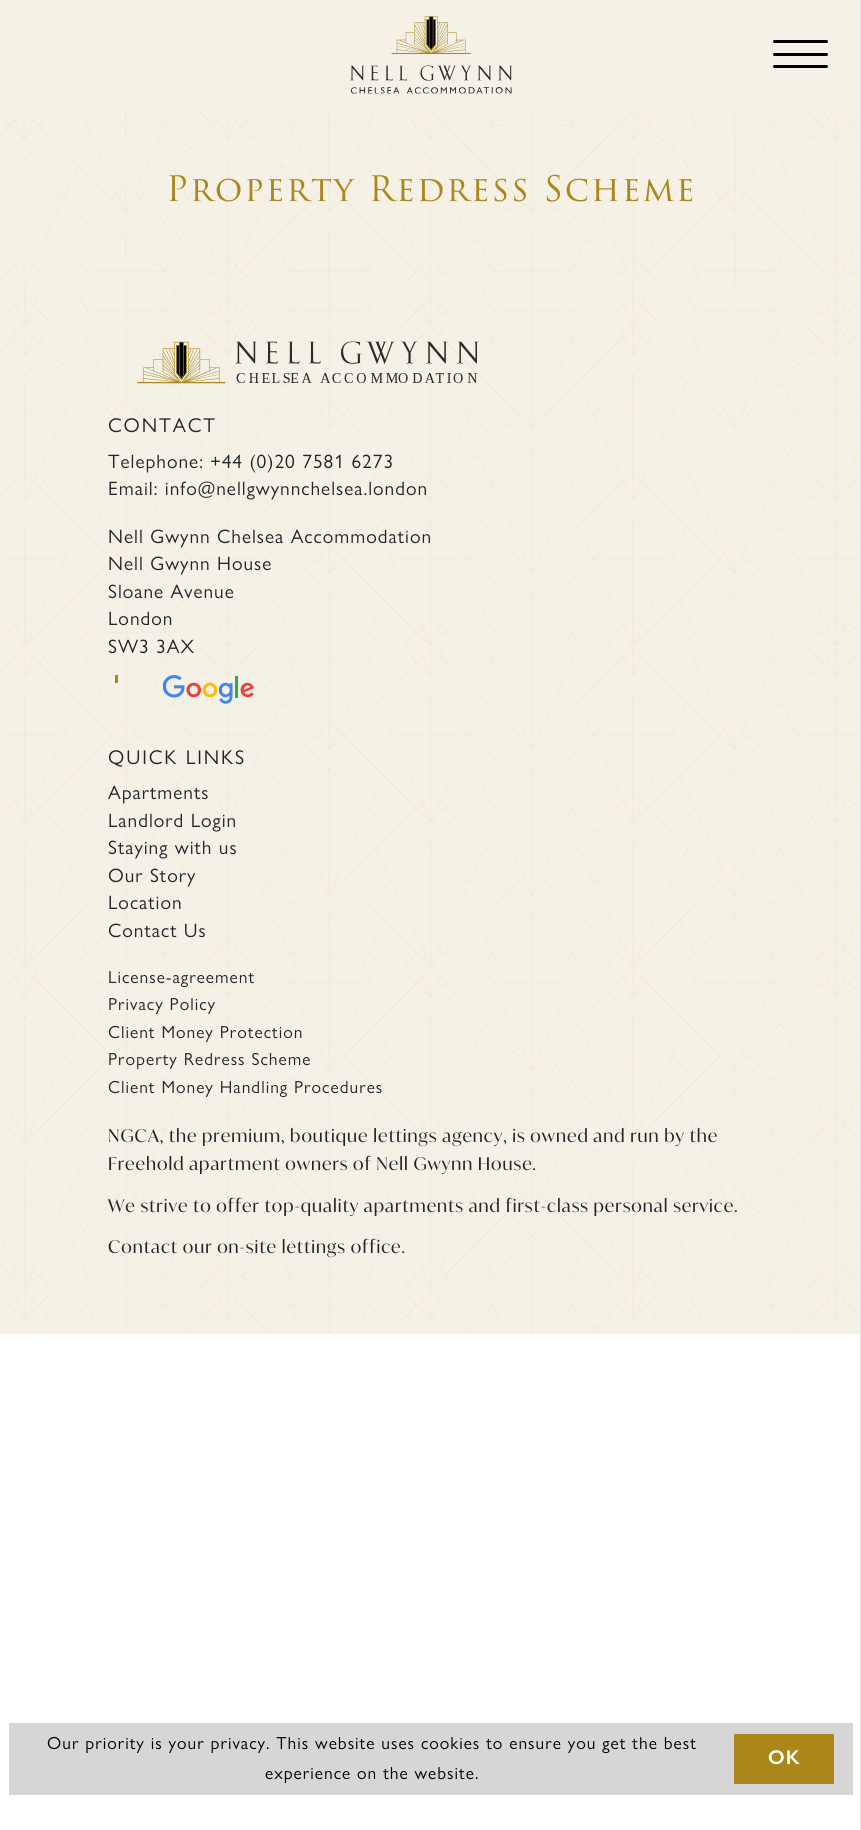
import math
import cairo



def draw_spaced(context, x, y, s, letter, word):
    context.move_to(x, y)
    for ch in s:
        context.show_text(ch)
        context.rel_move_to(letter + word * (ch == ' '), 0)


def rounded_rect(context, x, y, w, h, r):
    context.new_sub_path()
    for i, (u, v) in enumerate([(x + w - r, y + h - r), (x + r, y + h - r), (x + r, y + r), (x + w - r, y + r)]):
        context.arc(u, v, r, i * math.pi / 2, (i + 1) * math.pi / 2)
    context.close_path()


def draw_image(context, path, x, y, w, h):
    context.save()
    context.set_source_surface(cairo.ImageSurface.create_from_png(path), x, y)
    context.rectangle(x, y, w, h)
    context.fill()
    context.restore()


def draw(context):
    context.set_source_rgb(1, 1, 1)
    context.paint()
    context.set_source_rgb(245 / 255, 241 / 255, 230 / 255)
    context.rectangle(0, 0, 860, 1334)
    context.fill()
    draw_image(context, "images/1.png", 350, 16, 162, 78)
    context.set_source_rgb(0, 0, 0)
    rounded_rect(context, 773, 40, 55, 3, 1.5)
    context.fill()
    rounded_rect(context, 773, 53, 55, 3, 1.5)
    context.fill()
    rounded_rect(context, 773, 65, 55, 3, 1.5)
    context.fill()
    context.set_source_rgb(229 / 255, 229 / 255, 229 / 255)
    context.rectangle(860, 0, 1, 1830)
    context.fill()
    draw_image(context, "images/2.png", 0, 111, 860, 170)
    draw_image(context, "images/3.png", 0, 281, 860, 1053)
    draw_image(context, "images/4.png", 137, 341, 342, 43)
    context.set_source_rgb(171 / 255, 134 / 255, 25 / 255)
    context.rectangle(115, 675, 3, 8)
    context.fill()
    draw_image(context, "images/5.png", 163, 675, 91, 29)
    context.set_source_rgb(214 / 255, 214 / 255, 214 / 255)
    context.rectangle(9, 1723, 844, 72)
    context.fill()
    context.set_source_rgb(171 / 255, 134 / 255, 26 / 255)
    context.rectangle(734, 1734, 100, 50)
    context.fill()
    context.select_font_face("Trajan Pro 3")
    context.set_font_size(34.25)
    draw_spaced(context, 166, 201, "Property Redress Scheme", 1.9, 0)
    context.select_font_face("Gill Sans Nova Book")
    context.set_font_size(20)
    context.set_source_rgb(33 / 255, 37 / 255, 41 / 255)
    draw_spaced(context, 108, 432, "CONTACT", 1.9, 0)
    context.set_font_size(19.4)
    draw_spaced(context, 108, 468, "Telephone: +44 (0)20 7581 6273", 1, 0)
    draw_spaced(context, 108, 495, "Email: info@nellgwynnchelsea.london", 1, 0)
    draw_spaced(context, 108, 543, "Nell Gwynn Chelsea Accommodation", 1, 0)
    draw_spaced(context, 108, 570, "Nell Gwynn House", 1, 0)
    draw_spaced(context, 108, 598, "Sloane Avenue", 1, 0)
    draw_spaced(context, 108, 625, "London", 1, 0)
    draw_spaced(context, 108, 653, "SW3 3AX", 1, 0)
    context.set_font_size(20)
    draw_spaced(context, 108, 764, "QUICK LINKS", 1.9, 0)
    context.set_font_size(19.4)
    draw_spaced(context, 108, 799, "Apartments", 1, 0)
    draw_spaced(context, 108, 827, "Landlord Login", 1, 0)
    draw_spaced(context, 108, 854, "Staying with us", 1, 0)
    draw_spaced(context, 108, 882, "Our Story", 1, 0)
    draw_spaced(context, 108, 909, "Location", 1, 0)
    draw_spaced(context, 108, 937, "Contact Us", 1, 0)
    context.set_font_size(17.5)
    draw_spaced(context, 108, 983, "License-agreement", 1, 0)
    draw_spaced(context, 108, 1010, "Privacy Policy", 1, 0)
    draw_spaced(context, 108, 1038, "Client Money Protection", 1, 0)
    draw_spaced(context, 108, 1065, "Property Redress Scheme", 1, 0)
    draw_spaced(context, 108, 1093, "Client Money Handling Procedures", 1, 0)
    context.select_font_face("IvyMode")
    draw_spaced(context, 108, 1142, "NGCA, the premium, boutique lettings agency, is owned and run by the", 1, 0)
    draw_spaced(context, 108, 1170, "Freehold apartment owners of Nell Gwynn House.", 1, 0)
    draw_spaced(context, 108, 1212, "We strive to offer top-quality apartments and first-class personal service.", 1, 0)
    draw_spaced(context, 108, 1253, "Contact our on-site lettings office.", 1, 0)
    context.select_font_face("Gill Sans Nova Book")
    context.set_source_rgb(0, 0, 0)
    draw_spaced(context, 47, 1749, "Our priority is your privacy. This website uses cookies to ensure you get the best", 1, 0)
    draw_spaced(context, 265, 1779, "experience on the website.", 1, 0)
    context.select_font_face("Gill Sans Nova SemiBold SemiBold")
    context.set_font_size(20)
    context.set_source_rgb(1, 1, 1)
    draw_spaced(context, 768, 1764, "OK", 1, 0)


surface = cairo.ImageSurface(cairo.Format.RGB24, 861, 1830)
context = cairo.Context(surface)
options = cairo.FontOptions()
options.set_hint_metrics(cairo.HintMetrics.OFF)
options.set_hint_style(cairo.HintStyle.NONE)
context.set_font_options(options)
context.set_miter_limit(4)
draw(context)
surface.write_to_png("out.png")
